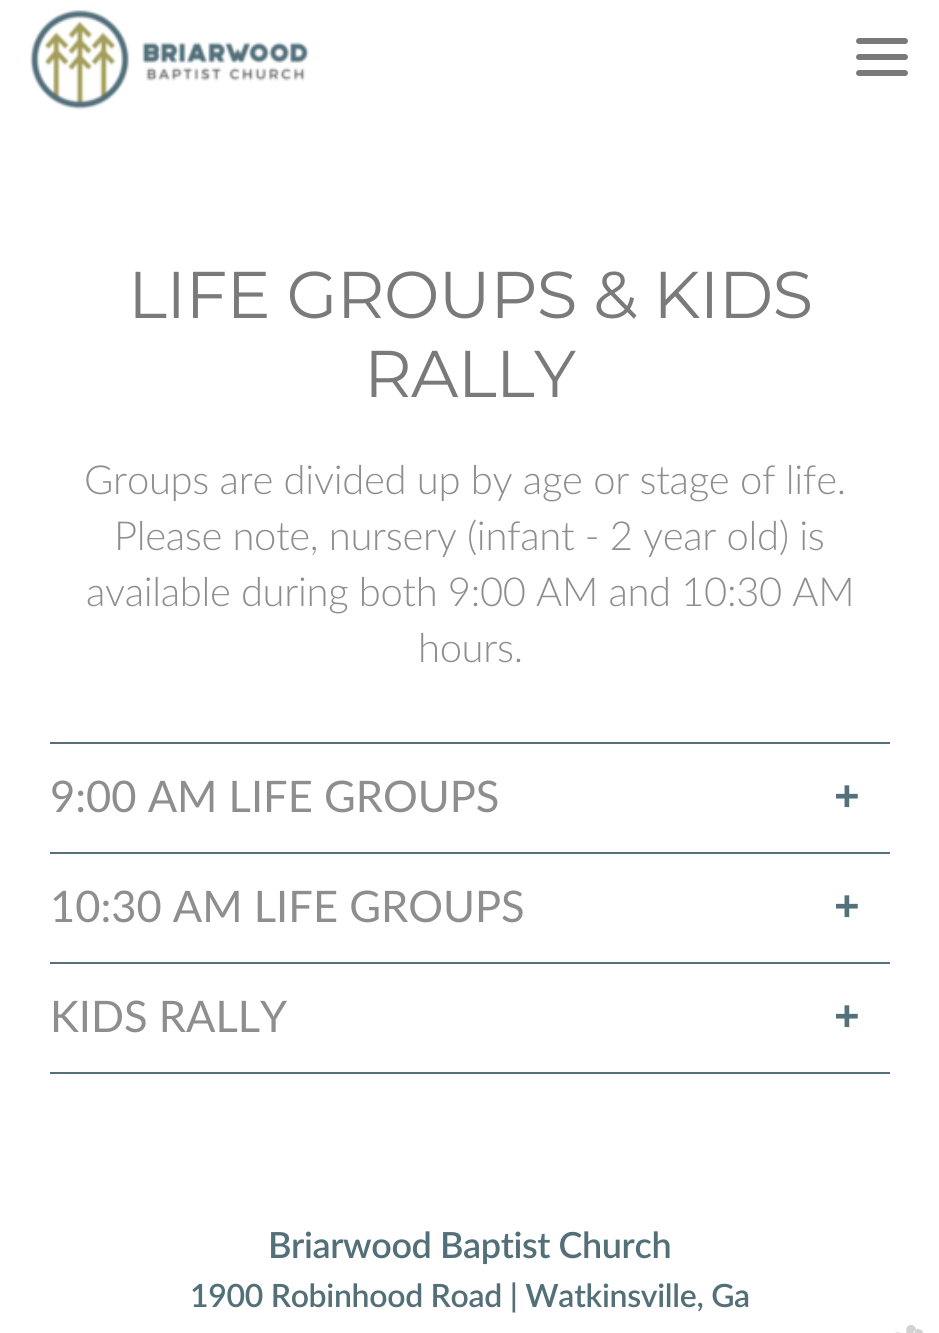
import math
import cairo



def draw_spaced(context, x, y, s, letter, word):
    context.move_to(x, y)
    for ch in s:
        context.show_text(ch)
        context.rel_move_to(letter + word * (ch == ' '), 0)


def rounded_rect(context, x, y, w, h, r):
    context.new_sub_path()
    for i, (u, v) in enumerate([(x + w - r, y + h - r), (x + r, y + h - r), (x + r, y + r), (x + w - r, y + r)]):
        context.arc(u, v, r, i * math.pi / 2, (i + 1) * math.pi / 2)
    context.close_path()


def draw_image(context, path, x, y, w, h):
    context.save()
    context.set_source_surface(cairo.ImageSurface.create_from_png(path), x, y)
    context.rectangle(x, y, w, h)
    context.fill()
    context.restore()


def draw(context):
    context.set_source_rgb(1, 1, 1)
    context.paint()
    draw_image(context, "images/1.png", 30, 9, 279, 101)
    context.set_source_rgb(122 / 255, 122 / 255, 122 / 255)
    rounded_rect(context, 856, 38, 52, 6, 3)
    context.fill()
    rounded_rect(context, 856, 54, 52, 6, 3)
    context.fill()
    rounded_rect(context, 856, 70, 52, 6, 3)
    context.fill()
    context.set_source_rgb(84 / 255, 112 / 255, 122 / 255)
    context.rectangle(50, 742, 840, 2)
    context.fill()
    draw_image(context, "images/2.png", 836, 785, 22, 23)
    context.rectangle(50, 852, 840, 2)
    context.fill()
    draw_image(context, "images/2.png", 836, 895, 22, 23)
    context.rectangle(50, 962, 840, 2)
    context.fill()
    context.rectangle(50, 1072, 840, 2)
    context.fill()
    draw_image(context, "images/2.png", 836, 1005, 22, 23)
    draw_image(context, "images/3.png", 895, 1324, 28, 9)
    context.select_font_face("Montserrat")
    context.set_font_size(66)
    context.set_source_rgb(122 / 255, 122 / 255, 122 / 255)
    draw_spaced(context, 128, 318, "LIFE GROUPS & KIDS", -0.7, 0)
    draw_spaced(context, 364, 397, "RALLY", -0.7, 0)
    context.select_font_face("Lato Light")
    context.set_font_size(40)
    context.set_source_rgb(142 / 255, 142 / 255, 142 / 255)
    draw_spaced(context, 84, 494, "Groups are divided up by age or stage of life.", -0.3, 0)
    draw_spaced(context, 114, 550, "Please note, nursery (infant - 2 year old) is", -0.35, 0)
    draw_spaced(context, 86, 606, "available during both 9:00 AM and 10:30 AM", -0.35, 0)
    draw_spaced(context, 418, 662, "hours.", -0.35, 0)
    context.select_font_face("Lato")
    context.set_font_size(43.5)
    context.move_to(50, 812)
    context.show_text("9:00 AM LIFE GROUPS")
    context.move_to(50, 922)
    context.show_text("10:30 AM LIFE GROUPS")
    context.move_to(50, 1032)
    context.show_text("KIDS RALLY")
    context.select_font_face("Lato SemiBold")
    context.set_font_size(36)
    context.set_source_rgb(83 / 255, 111 / 255, 120 / 255)
    draw_spaced(context, 268, 1258, "Briarwood Baptist Church", -0.4, 0)
    context.set_font_size(32)
    draw_spaced(context, 190, 1307, "1900 Robinhood Road | Watkinsville, Ga", -0.3, 0)


surface = cairo.ImageSurface(cairo.Format.RGB24, 939, 1333)
context = cairo.Context(surface)
options = cairo.FontOptions()
options.set_hint_metrics(cairo.HintMetrics.OFF)
options.set_hint_style(cairo.HintStyle.NONE)
context.set_font_options(options)
context.set_miter_limit(4)
draw(context)
surface.write_to_png("out.png")
